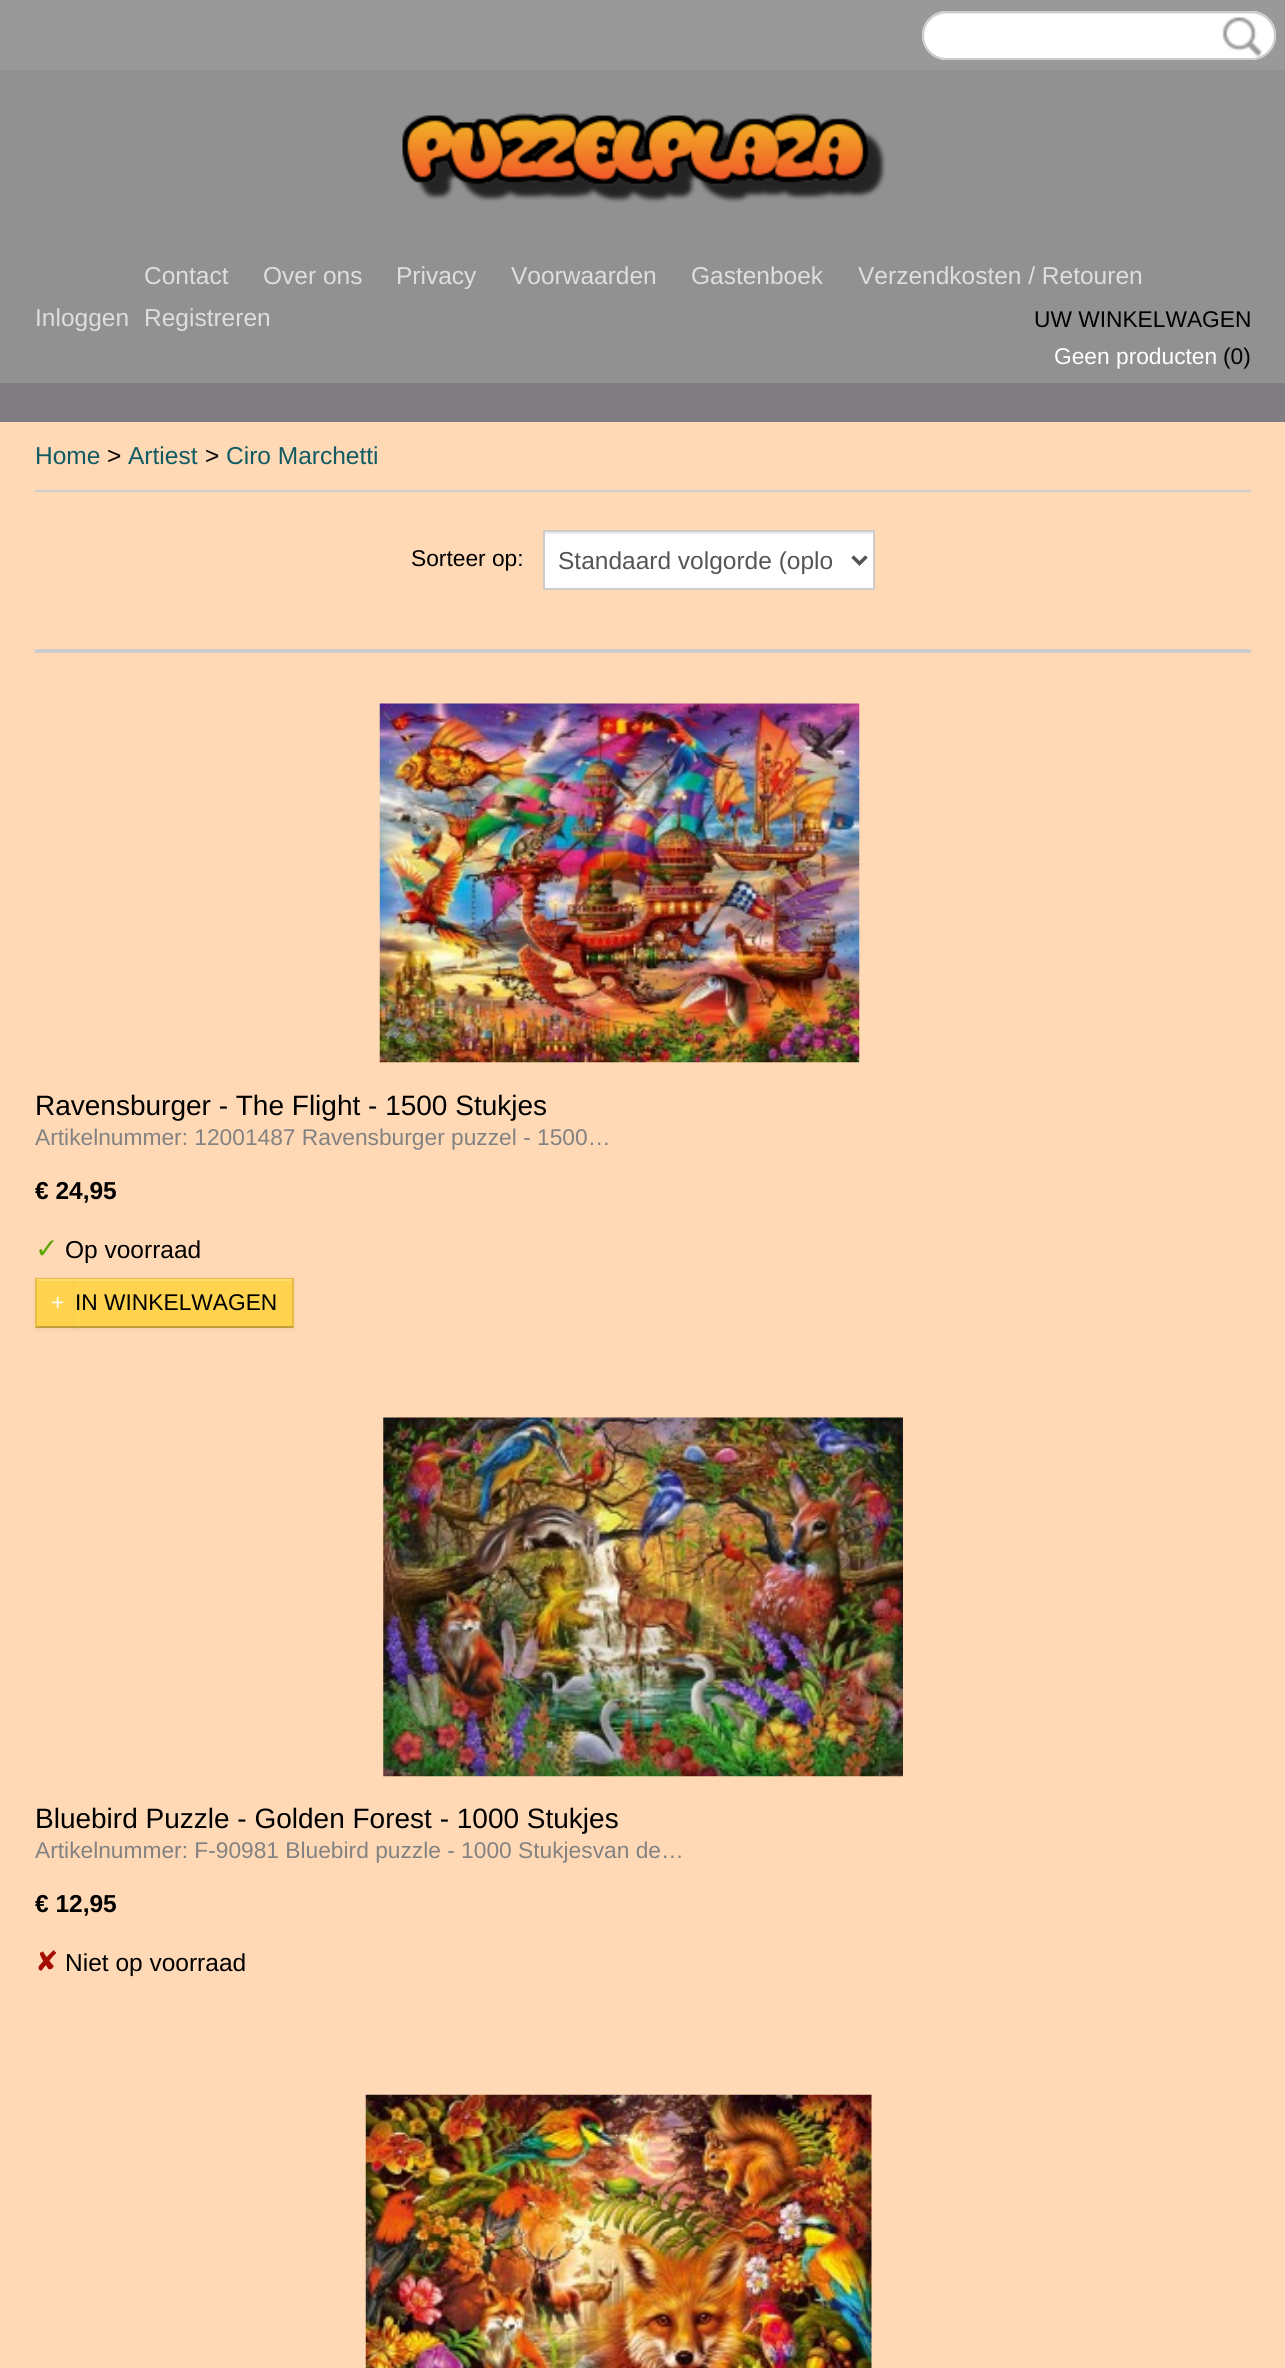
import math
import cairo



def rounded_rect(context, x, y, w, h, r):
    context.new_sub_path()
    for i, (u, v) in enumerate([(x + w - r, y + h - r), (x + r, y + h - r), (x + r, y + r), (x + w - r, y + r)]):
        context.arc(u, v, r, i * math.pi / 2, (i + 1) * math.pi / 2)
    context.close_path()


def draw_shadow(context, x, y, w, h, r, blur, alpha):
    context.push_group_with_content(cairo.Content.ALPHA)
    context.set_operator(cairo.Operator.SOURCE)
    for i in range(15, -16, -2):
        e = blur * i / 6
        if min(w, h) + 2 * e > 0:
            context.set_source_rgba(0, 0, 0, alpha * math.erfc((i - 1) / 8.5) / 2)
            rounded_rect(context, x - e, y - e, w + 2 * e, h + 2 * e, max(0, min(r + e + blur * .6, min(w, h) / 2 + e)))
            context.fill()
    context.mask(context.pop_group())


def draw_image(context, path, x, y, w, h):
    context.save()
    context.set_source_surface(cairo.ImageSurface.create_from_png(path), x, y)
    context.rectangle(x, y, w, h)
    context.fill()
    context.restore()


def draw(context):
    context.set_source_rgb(128 / 255, 126 / 255, 130 / 255)
    context.paint()
    context.set_source_rgb(153 / 255, 153 / 255, 153 / 255)
    context.rectangle(0, 0, 1285, 70)
    context.fill()
    context.set_source_rgb(1, 1, 1)
    rounded_rect(context, 922, 11, 354, 49, 24.5)
    context.fill()
    context.set_source_rgb(236 / 255, 236 / 255, 236 / 255)
    context.new_path()
    context.move_to(947, 14)
    context.line_to(1251, 14)
    context.curve_to(1264, 14, 1273, 23, 1274, 36)
    context.curve_to(1275, 23, 1264, 12, 1251, 12)
    context.line_to(947, 12)
    context.curve_to(934, 12, 923, 23, 924, 36)
    context.curve_to(925, 23, 934, 14, 947, 14)
    context.close_path()
    context.fill()
    rounded_rect(context, 923, 12, 352, 47, 23.5)
    context.set_source_rgb(204 / 255, 204 / 255, 204 / 255)
    context.stroke()
    draw_image(context, "images/1.png", 1222, 17, 40, 40)
    context.set_source_rgb(145 / 255, 145 / 255, 145 / 255)
    context.rectangle(0, 70, 1285, 313)
    context.fill()
    draw_image(context, "images/2.png", 402, 113, 484, 90)
    context.set_source_rgb(1, 216 / 255, 181 / 255)
    context.rectangle(0, 422, 1285, 1946)
    context.fill()
    context.set_source_rgb(204 / 255, 204 / 255, 204 / 255)
    context.rectangle(35, 490, 1216, 2)
    context.fill()
    context.set_source_rgb(1, 1, 1)
    context.rectangle(545, 534, 328, 54)
    context.fill()
    context.set_source_rgb(236 / 255, 236 / 255, 236 / 255)
    context.rectangle(544, 532, 329, 2)
    context.fill()
    context.rectangle(544, 531, 330, 58)
    context.set_source_rgb(204 / 255, 204 / 255, 204 / 255)
    context.stroke()
    context.new_path()
    context.move_to(852.5, 556.5)
    context.line_to(859.5, 563.5)
    context.line_to(866.5, 556.5)
    context.set_source_rgb(85 / 255, 85 / 255, 85 / 255)
    context.set_line_width(3.5)
    context.stroke()
    context.set_source_rgb(204 / 255, 204 / 255, 204 / 255)
    context.rectangle(35, 649, 1216, 4)
    context.fill()
    draw_image(context, "images/3.png", 379, 703, 481, 360)
    context.set_source_rgb(0, 0, 0)
    draw_shadow(context, 35, 1279, 40, 51, 0, 2, 0.05)
    context.set_source_rgb(1, 211 / 255, 78 / 255)
    context.rectangle(35, 1278, 40, 50)
    context.fill()
    context.set_source_rgb(1, 220 / 255, 113 / 255)
    context.rectangle(37, 1279, 38, 2)
    context.fill()
    context.set_source_rgb(230 / 255, 190 / 255, 70 / 255)
    context.new_path()
    context.move_to(35, 1278)
    context.line_to(75, 1278)
    context.line_to(75, 1279)
    context.line_to(37, 1279)
    context.close_path()
    context.fill()
    context.set_source_rgb(191 / 255, 158 / 255, 59 / 255)
    context.new_path()
    context.move_to(75, 1328)
    context.line_to(35, 1328)
    context.line_to(37, 1326)
    context.line_to(75, 1326)
    context.close_path()
    context.fill()
    context.set_source_rgba(0, 0, 0, 0.1)
    context.new_path()
    context.move_to(35, 1328)
    context.line_to(35, 1278)
    context.line_to(37, 1279)
    context.line_to(37, 1326)
    context.close_path()
    context.fill()
    context.set_source_rgb(0, 0, 0)
    draw_shadow(context, 75, 1279, 219, 51, 0, 2, 0.05)
    context.set_source_rgb(1, 211 / 255, 78 / 255)
    context.rectangle(75, 1278, 219, 50)
    context.fill()
    context.set_source_rgb(1, 220 / 255, 113 / 255)
    context.rectangle(75, 1279, 217, 2)
    context.fill()
    context.set_source_rgb(230 / 255, 190 / 255, 70 / 255)
    context.new_path()
    context.move_to(75, 1278)
    context.line_to(294, 1278)
    context.line_to(292, 1279)
    context.line_to(75, 1279)
    context.close_path()
    context.fill()
    context.set_source_rgba(0, 0, 0, 0.1)
    context.new_path()
    context.move_to(294, 1278)
    context.line_to(294, 1328)
    context.line_to(292, 1326)
    context.line_to(292, 1279)
    context.close_path()
    context.fill()
    context.set_source_rgba(0, 0, 0, 0.25)
    context.new_path()
    context.move_to(294, 1328)
    context.line_to(75, 1328)
    context.line_to(75, 1326)
    context.line_to(292, 1326)
    context.close_path()
    context.fill()
    draw_image(context, "images/4.png", 383, 1417, 520, 360)
    draw_image(context, "images/5.png", 365, 2094, 507, 274)
    context.select_font_face("Liberation Sans")
    context.set_font_size(24.5)
    context.set_source_rgb(222 / 255, 222 / 255, 222 / 255)
    context.move_to(144, 284)
    context.show_text("Contact")
    context.move_to(263, 284)
    context.show_text("Over ons")
    context.move_to(396, 284)
    context.show_text("Privacy")
    context.move_to(511, 284)
    context.show_text("Voorwaarden")
    context.move_to(691, 284)
    context.show_text("Gastenboek")
    context.move_to(858, 284)
    context.show_text("Verzendkosten / Retouren")
    context.move_to(35, 326)
    context.show_text("Inloggen")
    context.move_to(144, 326)
    context.show_text("Registreren")
    context.set_font_size(22.75)
    context.set_source_rgb(0, 0, 0)
    context.move_to(1034, 327)
    context.show_text("UW WINKELWAGEN")
    context.set_source_rgb(1, 1, 1)
    context.move_to(1054, 364)
    context.show_text("Geen producten")
    context.set_source_rgb(0, 0, 0)
    context.move_to(1223, 364)
    context.show_text("(0)")
    context.set_font_size(24.5)
    context.set_source_rgb(16 / 255, 91 / 255, 99 / 255)
    context.move_to(35, 464)
    context.show_text("Home")
    context.set_source_rgb(0, 0, 0)
    context.move_to(107, 464)
    context.show_text(">")
    context.set_source_rgb(16 / 255, 91 / 255, 99 / 255)
    context.move_to(128, 464)
    context.show_text("Artiest")
    context.set_source_rgb(0, 0, 0)
    context.move_to(205, 464)
    context.show_text(">")
    context.set_source_rgb(16 / 255, 91 / 255, 99 / 255)
    context.move_to(226, 464)
    context.show_text("Ciro Marchetti")
    context.set_font_size(22.75)
    context.set_source_rgb(0, 0, 0)
    context.move_to(411, 566)
    context.show_text("Sorteer op:")
    context.set_font_size(24.5)
    context.set_source_rgb(85 / 255, 85 / 255, 85 / 255)
    context.move_to(558, 569)
    context.show_text("Standaard volgorde (oplo")
    context.set_font_size(28)
    context.set_source_rgb(0, 0, 0)
    context.move_to(35, 1115)
    context.show_text("Ravensburger - The Flight - 1500 Stukjes")
    context.set_font_size(22.75)
    context.set_source_rgb(130 / 255, 130 / 255, 130 / 255)
    context.move_to(35, 1145)
    context.show_text("Artikelnummer: 12001487 Ravensburger puzzel - 1500…")
    context.select_font_face("Liberation Sans", cairo.FontSlant.NORMAL, cairo.FontWeight.BOLD)
    context.set_font_size(24.5)
    context.set_source_rgb(0, 0, 0)
    context.move_to(35, 1199)
    context.show_text("€ 24,95")
    context.select_font_face("DejaVu Sans")
    context.set_font_size(28)
    context.set_source_rgb(94 / 255, 166 / 255, 0)
    context.move_to(35, 1258)
    context.show_text("✓")
    context.select_font_face("Liberation Sans")
    context.set_font_size(24.5)
    context.set_source_rgb(0, 0, 0)
    context.move_to(65, 1258)
    context.show_text("Op voorraad")
    context.set_font_size(22.75)
    context.set_source_rgb(1, 1, 1)
    context.move_to(51, 1310)
    context.show_text("+")
    context.set_source_rgb(0, 0, 0)
    context.move_to(75, 1310)
    context.show_text("IN WINKELWAGEN")
    context.set_font_size(28)
    context.move_to(35, 1828)
    context.show_text("Bluebird Puzzle - Golden Forest - 1000 Stukjes")
    context.set_font_size(22.75)
    context.set_source_rgb(130 / 255, 130 / 255, 130 / 255)
    context.move_to(35, 1858)
    context.show_text("Artikelnummer: F-90981 Bluebird puzzle - 1000 Stukjesvan de…")
    context.select_font_face("Liberation Sans", cairo.FontSlant.NORMAL, cairo.FontWeight.BOLD)
    context.set_font_size(24.5)
    context.set_source_rgb(0, 0, 0)
    context.move_to(35, 1912)
    context.show_text("€ 12,95")
    context.select_font_face("DejaVu Sans")
    context.set_font_size(28)
    context.set_source_rgb(166 / 255, 12 / 255, 0)
    context.move_to(35, 1971)
    context.show_text("✘")
    context.select_font_face("Liberation Sans")
    context.set_font_size(24.5)
    context.set_source_rgb(0, 0, 0)
    context.move_to(65, 1971)
    context.show_text("Niet op voorraad")


surface = cairo.ImageSurface(cairo.Format.RGB24, 1285, 2368)
context = cairo.Context(surface)
options = cairo.FontOptions()
options.set_hint_metrics(cairo.HintMetrics.OFF)
options.set_hint_style(cairo.HintStyle.NONE)
context.set_font_options(options)
context.set_miter_limit(4)
draw(context)
surface.write_to_png("out.png")
